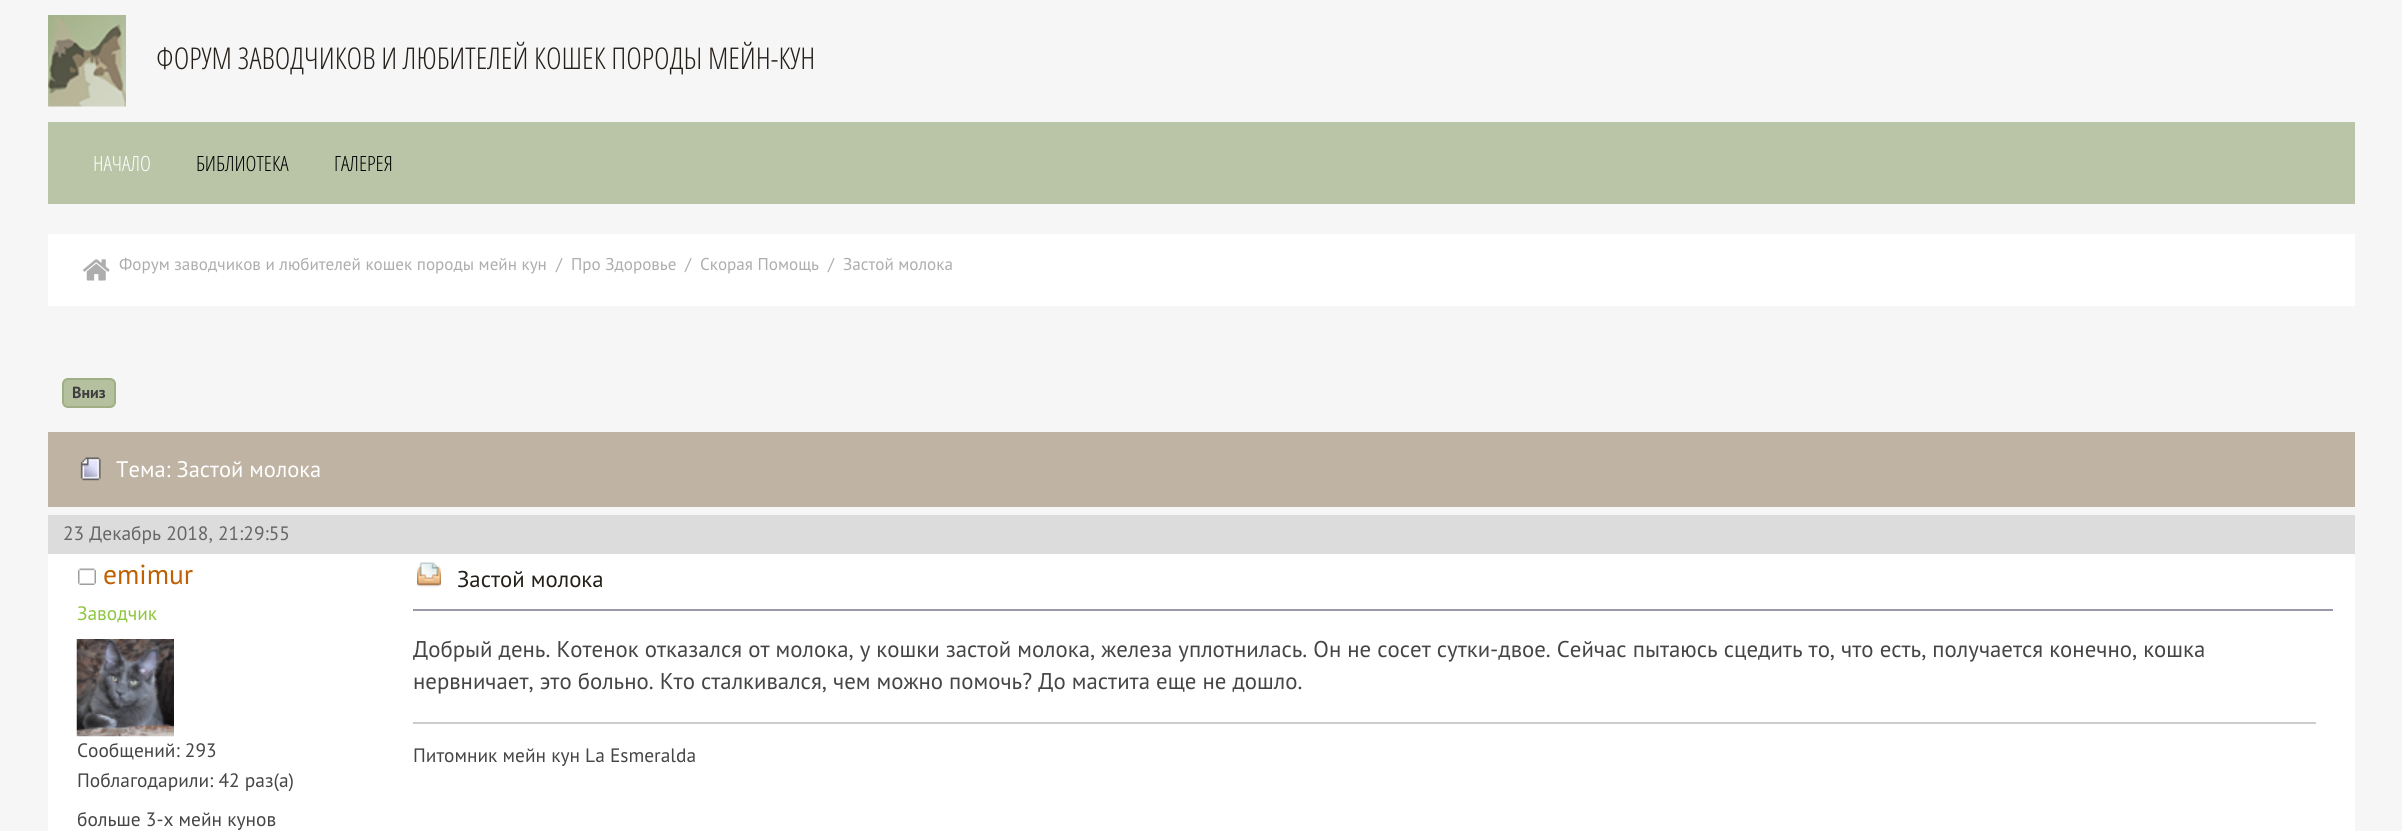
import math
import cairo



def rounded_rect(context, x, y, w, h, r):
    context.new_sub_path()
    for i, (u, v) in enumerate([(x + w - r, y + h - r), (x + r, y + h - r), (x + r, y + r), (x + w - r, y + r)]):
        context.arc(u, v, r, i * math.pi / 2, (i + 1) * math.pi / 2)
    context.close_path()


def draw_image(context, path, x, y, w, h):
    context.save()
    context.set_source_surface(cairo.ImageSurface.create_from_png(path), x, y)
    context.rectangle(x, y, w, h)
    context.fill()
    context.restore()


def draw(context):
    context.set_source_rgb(246 / 255, 246 / 255, 246 / 255)
    context.paint()
    draw_image(context, "images/1.png", 48, 15, 78, 92)
    context.set_source_rgb(186 / 255, 196 / 255, 167 / 255)
    context.rectangle(48, 122, 2307, 82)
    context.fill()
    context.set_source_rgb(1, 1, 1)
    context.rectangle(48, 234, 2307, 72)
    context.fill()
    draw_image(context, "images/2.png", 83, 259, 27, 22)
    context.set_source_rgb(181 / 255, 192 / 255, 158 / 255)
    rounded_rect(context, 63, 379, 52, 28, 5)
    context.fill_preserve()
    context.set_source_rgb(159 / 255, 174 / 255, 133 / 255)
    context.stroke()
    context.set_source_rgb(191 / 255, 179 / 255, 163 / 255)
    context.rectangle(48, 432, 2307, 75)
    context.fill()
    draw_image(context, "images/3.png", 80, 457, 21, 24)
    context.set_source_rgb(220 / 255, 220 / 255, 220 / 255)
    context.rectangle(48, 515, 2307, 39)
    context.fill()
    context.set_source_rgb(1, 1, 1)
    context.rectangle(48, 554, 2307, 277)
    context.fill()
    draw_image(context, "images/4.png", 78, 568, 18, 17)
    draw_image(context, "images/5.png", 76, 639, 98, 98)
    draw_image(context, "images/6.png", 417, 562, 24, 25)
    context.set_source_rgb(153 / 255, 153 / 255, 170 / 255)
    context.rectangle(413, 609, 1920, 2)
    context.fill()
    context.set_source_rgb(204 / 255, 204 / 255, 204 / 255)
    context.rectangle(413, 722, 1903, 2)
    context.fill()
    context.select_font_face("Open Sans Condensed Light")
    context.set_font_size(30)
    context.set_source_rgb(37 / 255, 31 / 255, 26 / 255)
    context.move_to(156, 69)
    context.show_text("ФОРУМ ЗАВОДЧИКОВ И ЛЮБИТЕЛЕЙ КОШЕК ПОРОДЫ МЕЙН-КУН")
    context.set_font_size(21)
    context.set_source_rgb(1, 1, 1)
    context.move_to(93, 171)
    context.show_text("НАЧАЛО")
    context.set_source_rgb(0, 0, 0)
    context.move_to(196, 171)
    context.show_text("БИБЛИОТЕКА")
    context.move_to(334, 171)
    context.show_text("ГАЛЕРЕЯ")
    context.select_font_face("PT Sans")
    context.set_font_size(17.1)
    context.set_source_rgb(173 / 255, 173 / 255, 173 / 255)
    context.move_to(119, 270)
    context.show_text("Форум заводчиков и любителей кошек породы мейн кун")
    context.move_to(556, 270)
    context.show_text("/")
    context.move_to(571, 270)
    context.show_text("Про Здоровье")
    context.move_to(685, 270)
    context.show_text("/")
    context.move_to(700, 270)
    context.show_text("Скорая Помощь")
    context.move_to(828, 270)
    context.show_text("/")
    context.move_to(843, 270)
    context.show_text("Застой молока")
    context.select_font_face("PT Sans", cairo.FontSlant.NORMAL, cairo.FontWeight.BOLD)
    context.set_font_size(16)
    context.set_source_rgb(62 / 255, 62 / 255, 62 / 255)
    context.move_to(72, 398)
    context.show_text("Вниз")
    context.select_font_face("PT Sans")
    context.set_font_size(22.5)
    context.set_source_rgb(1, 1, 1)
    context.move_to(116, 477)
    context.show_text("Тема: Застой молока")
    context.set_font_size(19.4)
    context.set_source_rgb(102 / 255, 102 / 255, 102 / 255)
    context.move_to(63, 540)
    context.show_text("23 Декабрь 2018, 21:29:55")
    context.set_font_size(27.5)
    context.set_source_rgb(192 / 255, 96 / 255, 2 / 255)
    context.move_to(103, 584)
    context.show_text("emimur")
    context.set_font_size(19.4)
    context.set_source_rgb(141 / 255, 198 / 255, 63 / 255)
    context.move_to(77, 620)
    context.show_text("Заводчик")
    context.set_source_rgb(69 / 255, 69 / 255, 69 / 255)
    context.move_to(77, 757)
    context.show_text("Сообщений: 293")
    context.move_to(77, 787)
    context.show_text("Поблагодарили: 42 раз(а)")
    context.move_to(77, 826)
    context.show_text("больше 3-х мейн кунов")
    context.set_font_size(22.8)
    context.set_source_rgb(37 / 255, 31 / 255, 26 / 255)
    context.move_to(457, 587)
    context.show_text("Застой молока")
    context.set_source_rgb(69 / 255, 69 / 255, 69 / 255)
    context.move_to(413, 657)
    context.show_text("Добрый день. Котенок отказался от молока, у кошки застой молока, железа уплотнилась. Он не сосет сутки-двое. Сейчас пытаюсь сцедить то, что есть, получается конечно, кошка")
    context.move_to(413, 689)
    context.show_text("нервничает, это больно. Кто сталкивался, чем можно помочь? До мастита еще не дошло.")
    context.set_font_size(19.4)
    context.move_to(413, 762)
    context.show_text("Питомник мейн кун La Esmeralda")


surface = cairo.ImageSurface(cairo.Format.RGB24, 2402, 831)
context = cairo.Context(surface)
options = cairo.FontOptions()
options.set_hint_metrics(cairo.HintMetrics.OFF)
options.set_hint_style(cairo.HintStyle.NONE)
context.set_font_options(options)
context.set_miter_limit(4)
draw(context)
surface.write_to_png("out.png")
